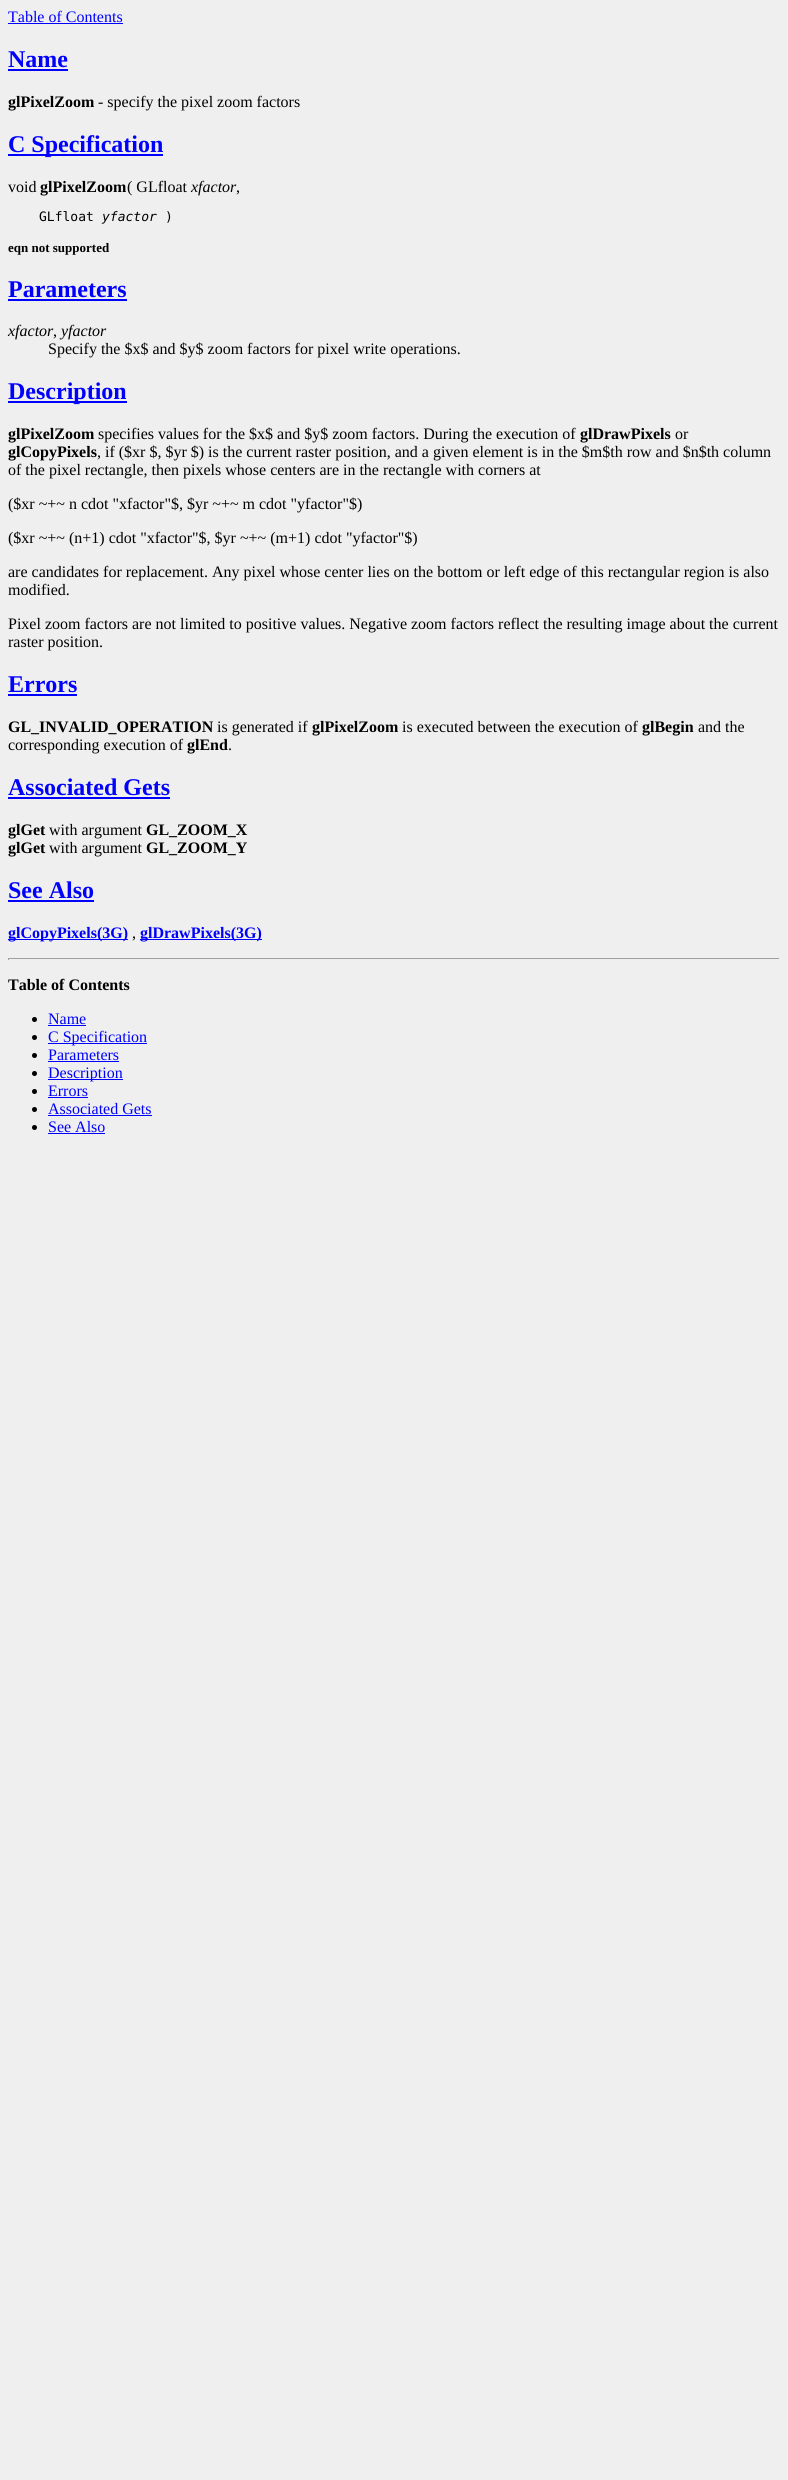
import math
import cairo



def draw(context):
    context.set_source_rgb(239 / 255, 239 / 255, 239 / 255)
    context.paint()
    context.set_source_rgb(0, 0, 1)
    context.rectangle(8, 23, 115, 1)
    context.fill()
    context.rectangle(8, 69, 60, 2)
    context.fill()
    context.rectangle(8, 154, 155, 2)
    context.fill()
    context.rectangle(8, 299, 119, 2)
    context.fill()
    context.rectangle(8, 401, 119, 2)
    context.fill()
    context.rectangle(8, 694, 69, 2)
    context.fill()
    context.rectangle(8, 797, 162, 2)
    context.fill()
    context.rectangle(8, 900, 86, 2)
    context.fill()
    context.rectangle(8, 939, 120, 1)
    context.fill()
    context.rectangle(140, 939, 122, 1)
    context.fill()
    context.set_source_rgb(159 / 255, 159 / 255, 159 / 255)
    context.rectangle(8, 958, 772, 1)
    context.fill()
    context.set_source_rgb(238 / 255, 238 / 255, 238 / 255)
    context.rectangle(779, 958, 1, 2)
    context.fill()
    context.set_source_rgb(159 / 255, 159 / 255, 159 / 255)
    context.rectangle(8, 958, 1, 2)
    context.fill()
    context.set_source_rgb(0, 0, 0)
    context.arc(34.5, 1019.5, 2.5, 0, 2 * math.pi)
    context.fill()
    context.set_source_rgb(0, 0, 1)
    context.rectangle(48, 1025, 38, 1)
    context.fill()
    context.set_source_rgb(0, 0, 0)
    context.arc(34.5, 1037.5, 2.5, 0, 2 * math.pi)
    context.fill()
    context.set_source_rgb(0, 0, 1)
    context.rectangle(48, 1043, 99, 1)
    context.fill()
    context.set_source_rgb(0, 0, 0)
    context.arc(34.5, 1055.5, 2.5, 0, 2 * math.pi)
    context.fill()
    context.set_source_rgb(0, 0, 1)
    context.rectangle(48, 1061, 71, 1)
    context.fill()
    context.set_source_rgb(0, 0, 0)
    context.arc(34.5, 1073.5, 2.5, 0, 2 * math.pi)
    context.fill()
    context.set_source_rgb(0, 0, 1)
    context.rectangle(48, 1079, 75, 1)
    context.fill()
    context.set_source_rgb(0, 0, 0)
    context.arc(34.5, 1091.5, 2.5, 0, 2 * math.pi)
    context.fill()
    context.set_source_rgb(0, 0, 1)
    context.rectangle(48, 1097, 40, 1)
    context.fill()
    context.set_source_rgb(0, 0, 0)
    context.arc(34.5, 1109.5, 2.5, 0, 2 * math.pi)
    context.fill()
    context.set_source_rgb(0, 0, 1)
    context.rectangle(48, 1115, 104, 1)
    context.fill()
    context.set_source_rgb(0, 0, 0)
    context.arc(34.5, 1127.5, 2.5, 0, 2 * math.pi)
    context.fill()
    context.set_source_rgb(0, 0, 1)
    context.rectangle(48, 1133, 57, 1)
    context.fill()
    context.select_font_face("Liberation Serif")
    context.set_font_size(16)
    context.move_to(8, 22)
    context.show_text("Table of Contents")
    context.select_font_face("Liberation Serif", cairo.FontSlant.NORMAL, cairo.FontWeight.BOLD)
    context.set_font_size(24)
    context.move_to(8, 67)
    context.show_text("Name")
    context.set_font_size(16)
    context.set_source_rgb(0, 0, 0)
    context.move_to(8, 107)
    context.show_text("glPixelZoom")
    context.select_font_face("Liberation Serif")
    context.move_to(98, 107)
    context.show_text("- specify the pixel zoom factors")
    context.select_font_face("Liberation Serif", cairo.FontSlant.NORMAL, cairo.FontWeight.BOLD)
    context.set_font_size(24)
    context.set_source_rgb(0, 0, 1)
    context.move_to(8, 152)
    context.show_text("C Specification")
    context.select_font_face("Liberation Serif")
    context.set_font_size(16)
    context.set_source_rgb(0, 0, 0)
    context.move_to(8, 192)
    context.show_text("void")
    context.select_font_face("Liberation Serif", cairo.FontSlant.NORMAL, cairo.FontWeight.BOLD)
    context.move_to(40, 192)
    context.show_text("glPixelZoom")
    context.select_font_face("Liberation Serif")
    context.move_to(127, 192)
    context.show_text("( GLfloat")
    context.select_font_face("Liberation Serif", cairo.FontSlant.ITALIC)
    context.move_to(191, 192)
    context.show_text("xfactor")
    context.select_font_face("Liberation Serif")
    context.move_to(236, 192)
    context.show_text(",")
    context.select_font_face("DejaVu Sans Mono")
    context.set_font_size(13)
    context.move_to(39, 221)
    context.show_text("GLfloat")
    context.select_font_face("DejaVu Sans Mono", cairo.FontSlant.ITALIC)
    context.move_to(102, 221)
    context.show_text("yfactor")
    context.select_font_face("DejaVu Sans Mono")
    context.move_to(165, 221)
    context.show_text(")")
    context.select_font_face("Liberation Serif", cairo.FontSlant.NORMAL, cairo.FontWeight.BOLD)
    context.move_to(8, 252)
    context.show_text("eqn not supported")
    context.set_font_size(24)
    context.set_source_rgb(0, 0, 1)
    context.move_to(8, 297)
    context.show_text("Parameters")
    context.select_font_face("Liberation Serif", cairo.FontSlant.ITALIC)
    context.set_font_size(16)
    context.set_source_rgb(0, 0, 0)
    context.move_to(8, 336)
    context.show_text("xfactor")
    context.select_font_face("Liberation Serif")
    context.move_to(53, 336)
    context.show_text(",")
    context.select_font_face("Liberation Serif", cairo.FontSlant.ITALIC)
    context.move_to(61, 336)
    context.show_text("yfactor")
    context.select_font_face("Liberation Serif")
    context.move_to(48, 354)
    context.show_text("Specify the $x$ and $y$ zoom factors for pixel write operations.")
    context.select_font_face("Liberation Serif", cairo.FontSlant.NORMAL, cairo.FontWeight.BOLD)
    context.set_font_size(24)
    context.set_source_rgb(0, 0, 1)
    context.move_to(8, 399)
    context.show_text("Description")
    context.set_font_size(16)
    context.set_source_rgb(0, 0, 0)
    context.move_to(8, 439)
    context.show_text("glPixelZoom")
    context.select_font_face("Liberation Serif")
    context.move_to(98, 439)
    context.show_text("specifies values for the $x$ and $y$ zoom factors. During the execution of")
    context.select_font_face("Liberation Serif", cairo.FontSlant.NORMAL, cairo.FontWeight.BOLD)
    context.move_to(580, 439)
    context.show_text("glDrawPixels")
    context.select_font_face("Liberation Serif")
    context.move_to(675, 439)
    context.show_text("or")
    context.select_font_face("Liberation Serif", cairo.FontSlant.NORMAL, cairo.FontWeight.BOLD)
    context.move_to(8, 457)
    context.show_text("glCopyPixels")
    context.select_font_face("Liberation Serif")
    context.move_to(97, 457)
    context.show_text(", if ($xr $, $yr $) is the current raster position, and a given element is in the $m$th row and $n$th column")
    context.move_to(8, 475)
    context.show_text("of the pixel rectangle, then pixels whose centers are in the rectangle with corners at")
    context.move_to(8, 509)
    context.show_text("($xr ~+~ n cdot \"xfactor\"$, $yr ~+~ m cdot \"yfactor\"$)")
    context.move_to(8, 543)
    context.show_text("($xr ~+~ (n+1) cdot \"xfactor\"$, $yr ~+~ (m+1) cdot \"yfactor\"$)")
    context.move_to(8, 577)
    context.show_text("are candidates for replacement. Any pixel whose center lies on the bottom or left edge of this rectangular region is also")
    context.move_to(8, 595)
    context.show_text("modified.")
    context.move_to(8, 629)
    context.show_text("Pixel zoom factors are not limited to positive values. Negative zoom factors reflect the resulting image about the current")
    context.move_to(8, 647)
    context.show_text("raster position.")
    context.select_font_face("Liberation Serif", cairo.FontSlant.NORMAL, cairo.FontWeight.BOLD)
    context.set_font_size(24)
    context.set_source_rgb(0, 0, 1)
    context.move_to(8, 692)
    context.show_text("Errors")
    context.set_font_size(16)
    context.set_source_rgb(0, 0, 0)
    context.move_to(8, 732)
    context.show_text("GL_INVALID_OPERATION")
    context.select_font_face("Liberation Serif")
    context.move_to(217, 732)
    context.show_text("is generated if")
    context.select_font_face("Liberation Serif", cairo.FontSlant.NORMAL, cairo.FontWeight.BOLD)
    context.move_to(312, 732)
    context.show_text("glPixelZoom")
    context.select_font_face("Liberation Serif")
    context.move_to(402, 732)
    context.show_text("is executed between the execution of")
    context.select_font_face("Liberation Serif", cairo.FontSlant.NORMAL, cairo.FontWeight.BOLD)
    context.move_to(642, 732)
    context.show_text("glBegin")
    context.select_font_face("Liberation Serif")
    context.move_to(698, 732)
    context.show_text("and the")
    context.move_to(8, 750)
    context.show_text("corresponding execution of")
    context.select_font_face("Liberation Serif", cairo.FontSlant.NORMAL, cairo.FontWeight.BOLD)
    context.move_to(187, 750)
    context.show_text("glEnd")
    context.select_font_face("Liberation Serif")
    context.move_to(228, 750)
    context.show_text(".")
    context.select_font_face("Liberation Serif", cairo.FontSlant.NORMAL, cairo.FontWeight.BOLD)
    context.set_font_size(24)
    context.set_source_rgb(0, 0, 1)
    context.move_to(8, 795)
    context.show_text("Associated Gets")
    context.set_font_size(16)
    context.set_source_rgb(0, 0, 0)
    context.move_to(8, 835)
    context.show_text("glGet")
    context.select_font_face("Liberation Serif")
    context.move_to(49, 835)
    context.show_text("with argument")
    context.select_font_face("Liberation Serif", cairo.FontSlant.NORMAL, cairo.FontWeight.BOLD)
    context.move_to(146, 835)
    context.show_text("GL_ZOOM_X")
    context.move_to(8, 853)
    context.show_text("glGet")
    context.select_font_face("Liberation Serif")
    context.move_to(49, 853)
    context.show_text("with argument")
    context.select_font_face("Liberation Serif", cairo.FontSlant.NORMAL, cairo.FontWeight.BOLD)
    context.move_to(146, 853)
    context.show_text("GL_ZOOM_Y")
    context.set_font_size(24)
    context.set_source_rgb(0, 0, 1)
    context.move_to(8, 898)
    context.show_text("See Also")
    context.set_font_size(16)
    context.move_to(8, 938)
    context.show_text("glCopyPixels(3G)")
    context.select_font_face("Liberation Serif")
    context.set_source_rgb(0, 0, 0)
    context.move_to(132, 938)
    context.show_text(",")
    context.select_font_face("Liberation Serif", cairo.FontSlant.NORMAL, cairo.FontWeight.BOLD)
    context.set_source_rgb(0, 0, 1)
    context.move_to(140, 938)
    context.show_text("glDrawPixels(3G)")
    context.set_source_rgb(0, 0, 0)
    context.move_to(8, 990)
    context.show_text("Table of Contents")
    context.select_font_face("Liberation Serif")
    context.set_source_rgb(0, 0, 1)
    context.move_to(48, 1024)
    context.show_text("Name")
    context.move_to(48, 1042)
    context.show_text("C Specification")
    context.move_to(48, 1060)
    context.show_text("Parameters")
    context.move_to(48, 1078)
    context.show_text("Description")
    context.move_to(48, 1096)
    context.show_text("Errors")
    context.move_to(48, 1114)
    context.show_text("Associated Gets")
    context.move_to(48, 1132)
    context.show_text("See Also")


surface = cairo.ImageSurface(cairo.Format.RGB24, 788, 2480)
context = cairo.Context(surface)
options = cairo.FontOptions()
options.set_hint_metrics(cairo.HintMetrics.OFF)
options.set_hint_style(cairo.HintStyle.NONE)
context.set_font_options(options)
context.set_miter_limit(4)
draw(context)
surface.write_to_png("out.png")
